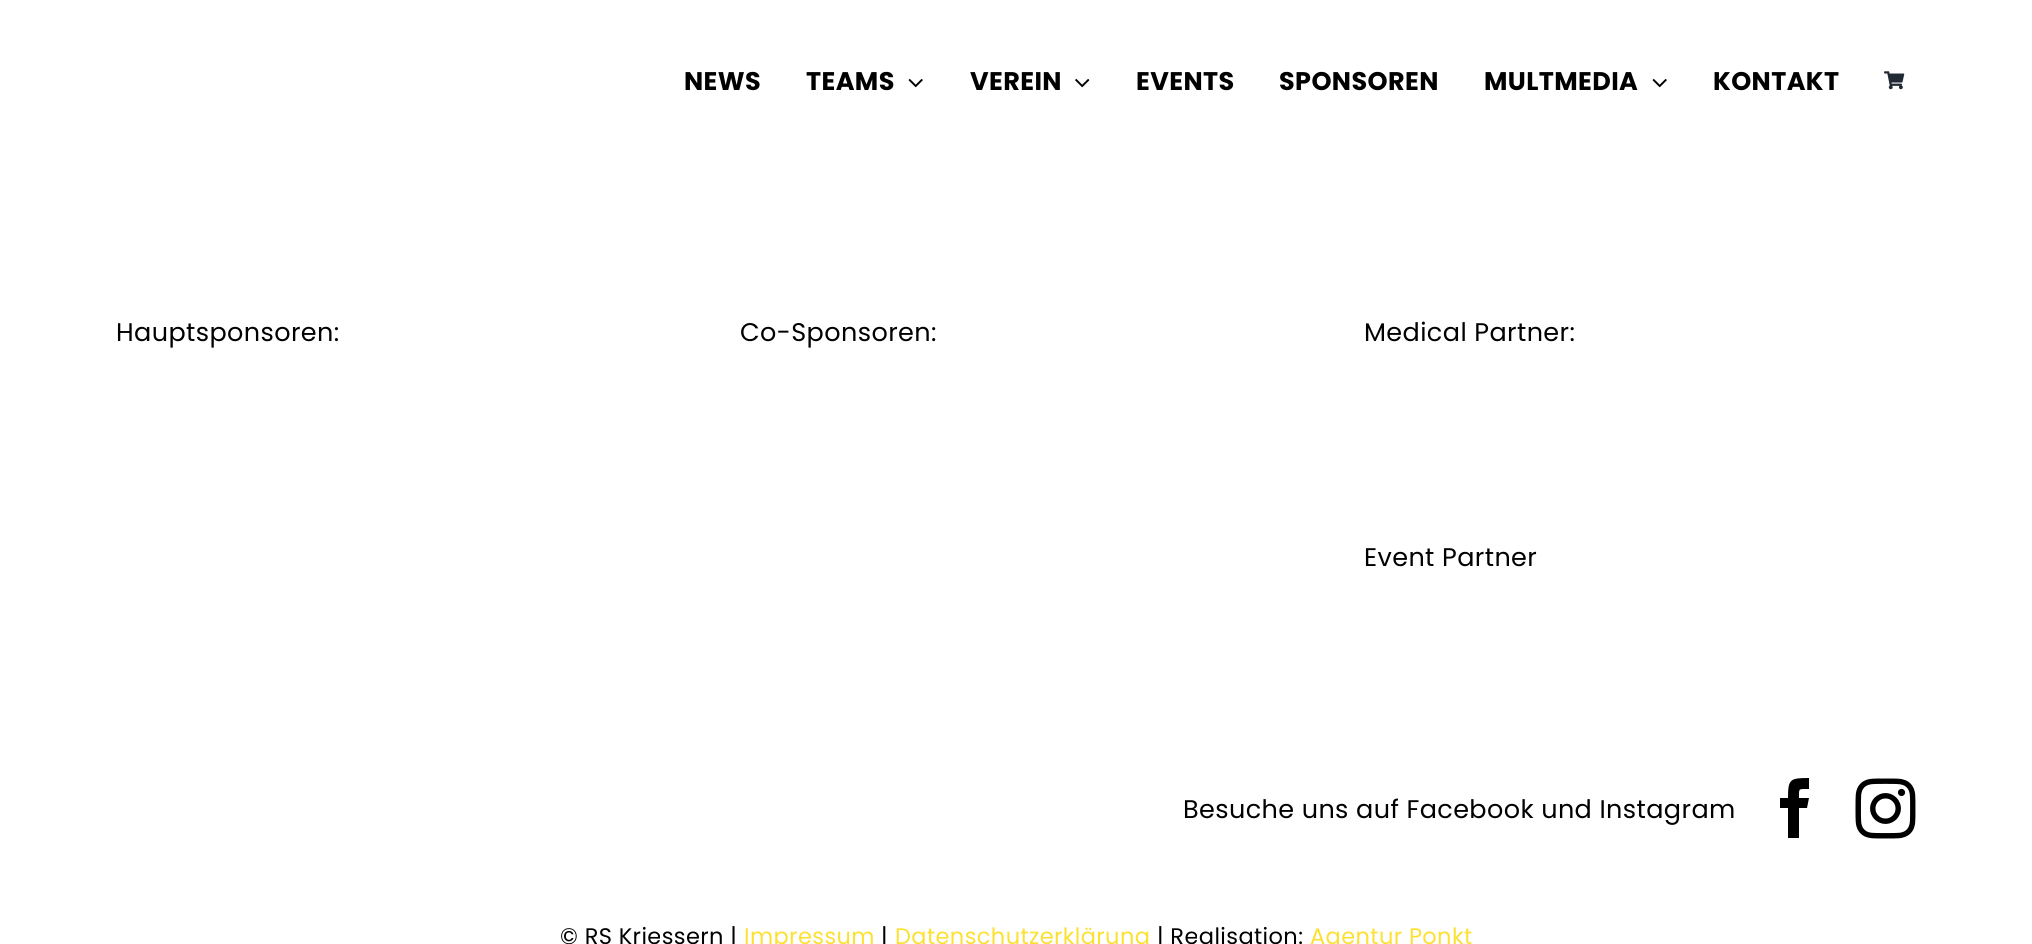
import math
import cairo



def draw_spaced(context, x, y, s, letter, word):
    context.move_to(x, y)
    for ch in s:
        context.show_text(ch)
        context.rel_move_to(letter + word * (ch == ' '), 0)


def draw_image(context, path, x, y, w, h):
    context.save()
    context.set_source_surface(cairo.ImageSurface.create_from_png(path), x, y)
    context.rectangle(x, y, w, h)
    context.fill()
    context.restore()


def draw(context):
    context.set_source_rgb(1, 1, 1)
    context.paint()
    draw_image(context, "images/1.png", 908, 79, 15, 9)
    draw_image(context, "images/2.png", 1075, 79, 15, 9)
    draw_image(context, "images/1.png", 1652, 79, 15, 9)
    draw_image(context, "images/3.png", 1884, 71, 21, 19)
    context.set_source_rgb(0, 0, 0)
    context.new_path()
    context.move_to(1799, 838)
    context.line_to(1788, 838)
    context.line_to(1788, 808)
    context.line_to(1780, 808)
    context.line_to(1780, 798)
    context.line_to(1788, 798)
    context.curve_to(1788, 779, 1790, 778, 1809, 778)
    context.line_to(1809, 789)
    context.curve_to(1798, 789, 1799, 788, 1799, 798)
    context.line_to(1809, 798)
    context.line_to(1807, 808)
    context.line_to(1799, 808)
    context.close_path()
    context.fill()
    draw_image(context, "images/4.png", 1855, 778, 61, 61)
    context.select_font_face("Poppins", cairo.FontSlant.NORMAL, cairo.FontWeight.BOLD)
    context.set_font_size(25.5)
    draw_spaced(context, 684, 90, "NEWS", 0.4, 0)
    draw_spaced(context, 806, 90, "TEAMS", 0.4, 0)
    draw_spaced(context, 970, 90, "VEREIN", 0.4, 0)
    draw_spaced(context, 1136, 90, "EVENTS", 0.4, 0)
    draw_spaced(context, 1279, 90, "SPONSOREN", 0.4, 0)
    draw_spaced(context, 1484, 90, "MULTMEDIA", 0.4, 0)
    draw_spaced(context, 1713, 90, "KONTAKT", 0.4, 0)
    context.select_font_face("Poppins")
    draw_spaced(context, 116, 341, "Hauptsponsoren:", 0.4, 0)
    draw_spaced(context, 740, 341, "Co-Sponsoren:", 0.4, 0)
    draw_spaced(context, 1364, 341, "Medical Partner:", 0.4, 0)
    draw_spaced(context, 1364, 566, "Event Partner", 0.4, 0)
    draw_spaced(context, 1183, 818, "Besuche uns auf Facebook und Instagram", 0.4, 0)
    context.set_font_size(22.5)
    draw_spaced(context, 560, 944, "© RS Kriessern |", 0.4, 0)
    context.set_source_rgb(252 / 255, 224 / 255, 50 / 255)
    draw_spaced(context, 744, 944, "Impressum", 0.4, 0)
    context.set_source_rgb(0, 0, 0)
    draw_spaced(context, 881, 944, "|", 0.4, 0)
    context.set_source_rgb(252 / 255, 224 / 255, 50 / 255)
    draw_spaced(context, 895, 944, "Datenschutzerklärung", 0.4, 0)
    context.set_source_rgb(0, 0, 0)
    draw_spaced(context, 1157, 944, "| Realisation:", 0.4, 0)
    context.set_source_rgb(252 / 255, 224 / 255, 50 / 255)
    draw_spaced(context, 1310, 944, "Agentur Ponkt", 0.4, 0)


surface = cairo.ImageSurface(cairo.Format.RGB24, 2032, 944)
context = cairo.Context(surface)
options = cairo.FontOptions()
options.set_hint_metrics(cairo.HintMetrics.OFF)
options.set_hint_style(cairo.HintStyle.NONE)
context.set_font_options(options)
context.set_miter_limit(4)
draw(context)
surface.write_to_png("out.png")
